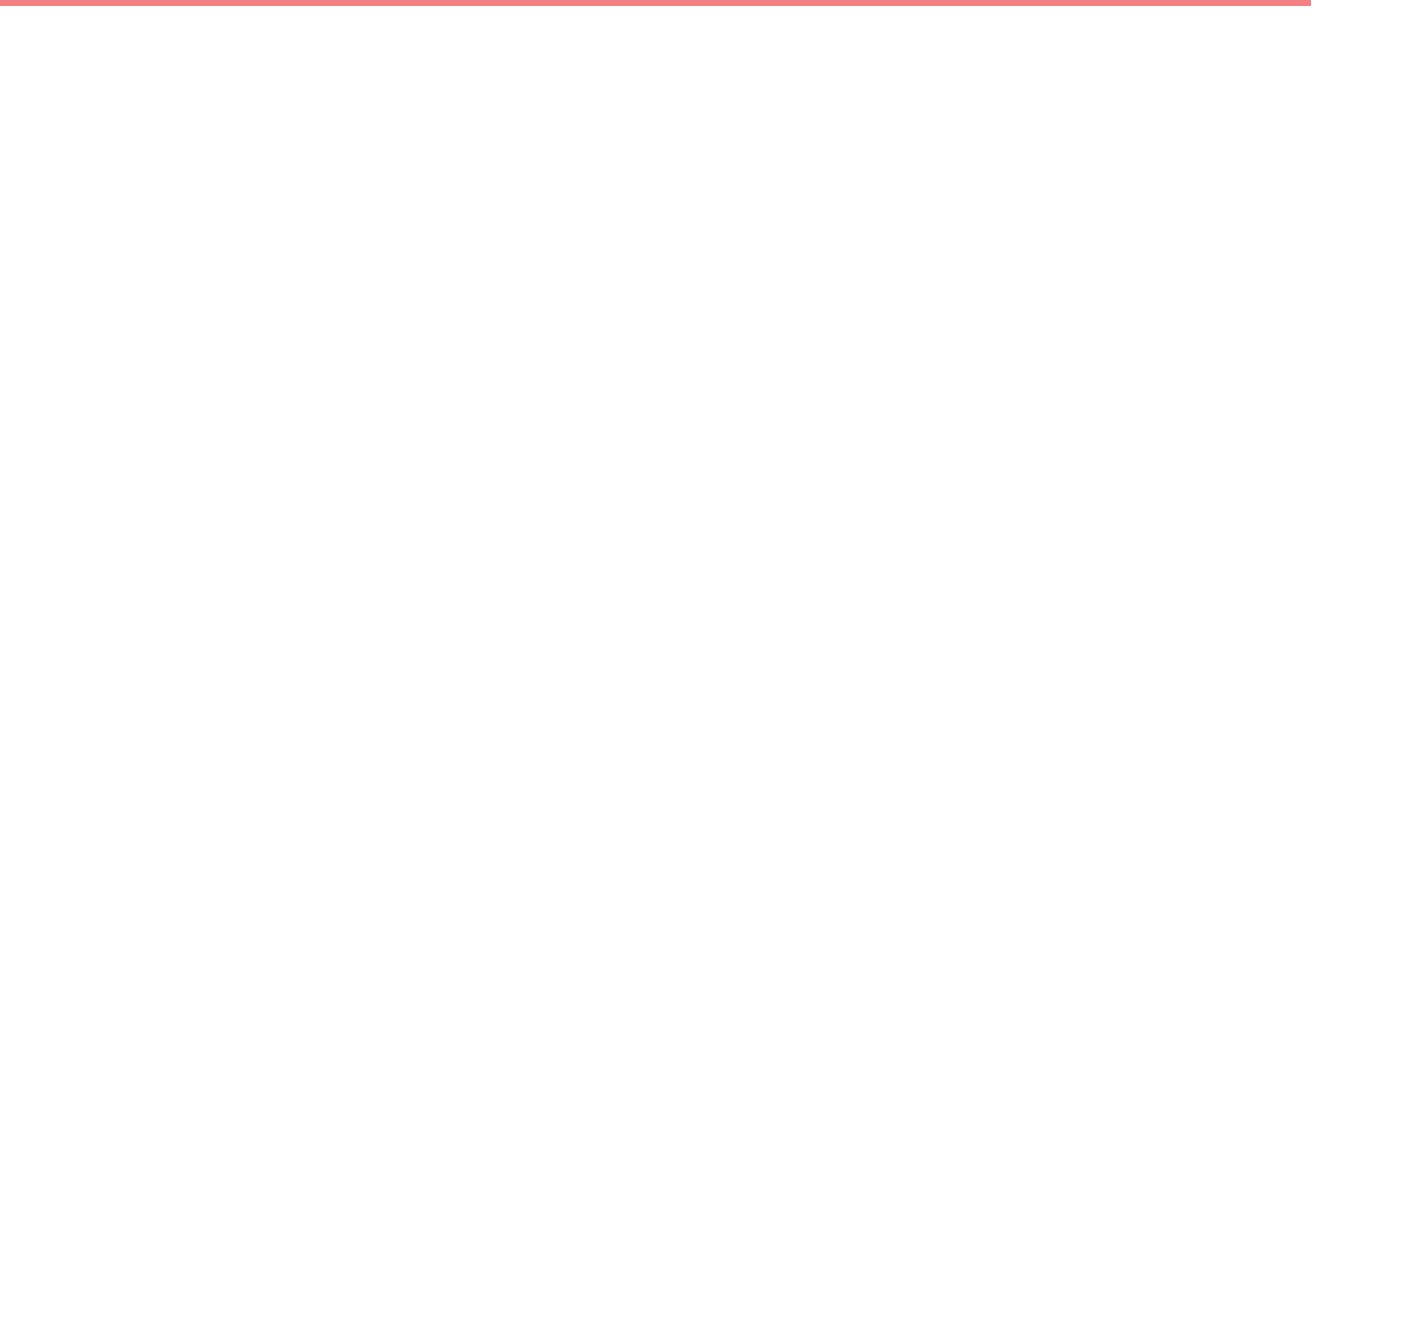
import math
import cairo



def draw(context):
    context.set_source_rgb(1, 1, 1)
    context.paint()
    context.set_source_rgb(242 / 255, 127 / 255, 129 / 255)
    context.rectangle(0, 0, 1311, 6)
    context.fill()


surface = cairo.ImageSurface(cairo.Format.RGB24, 1404, 1323)
context = cairo.Context(surface)
options = cairo.FontOptions()
options.set_hint_metrics(cairo.HintMetrics.OFF)
options.set_hint_style(cairo.HintStyle.NONE)
context.set_font_options(options)
context.set_miter_limit(4)
draw(context)
surface.write_to_png("out.png")
